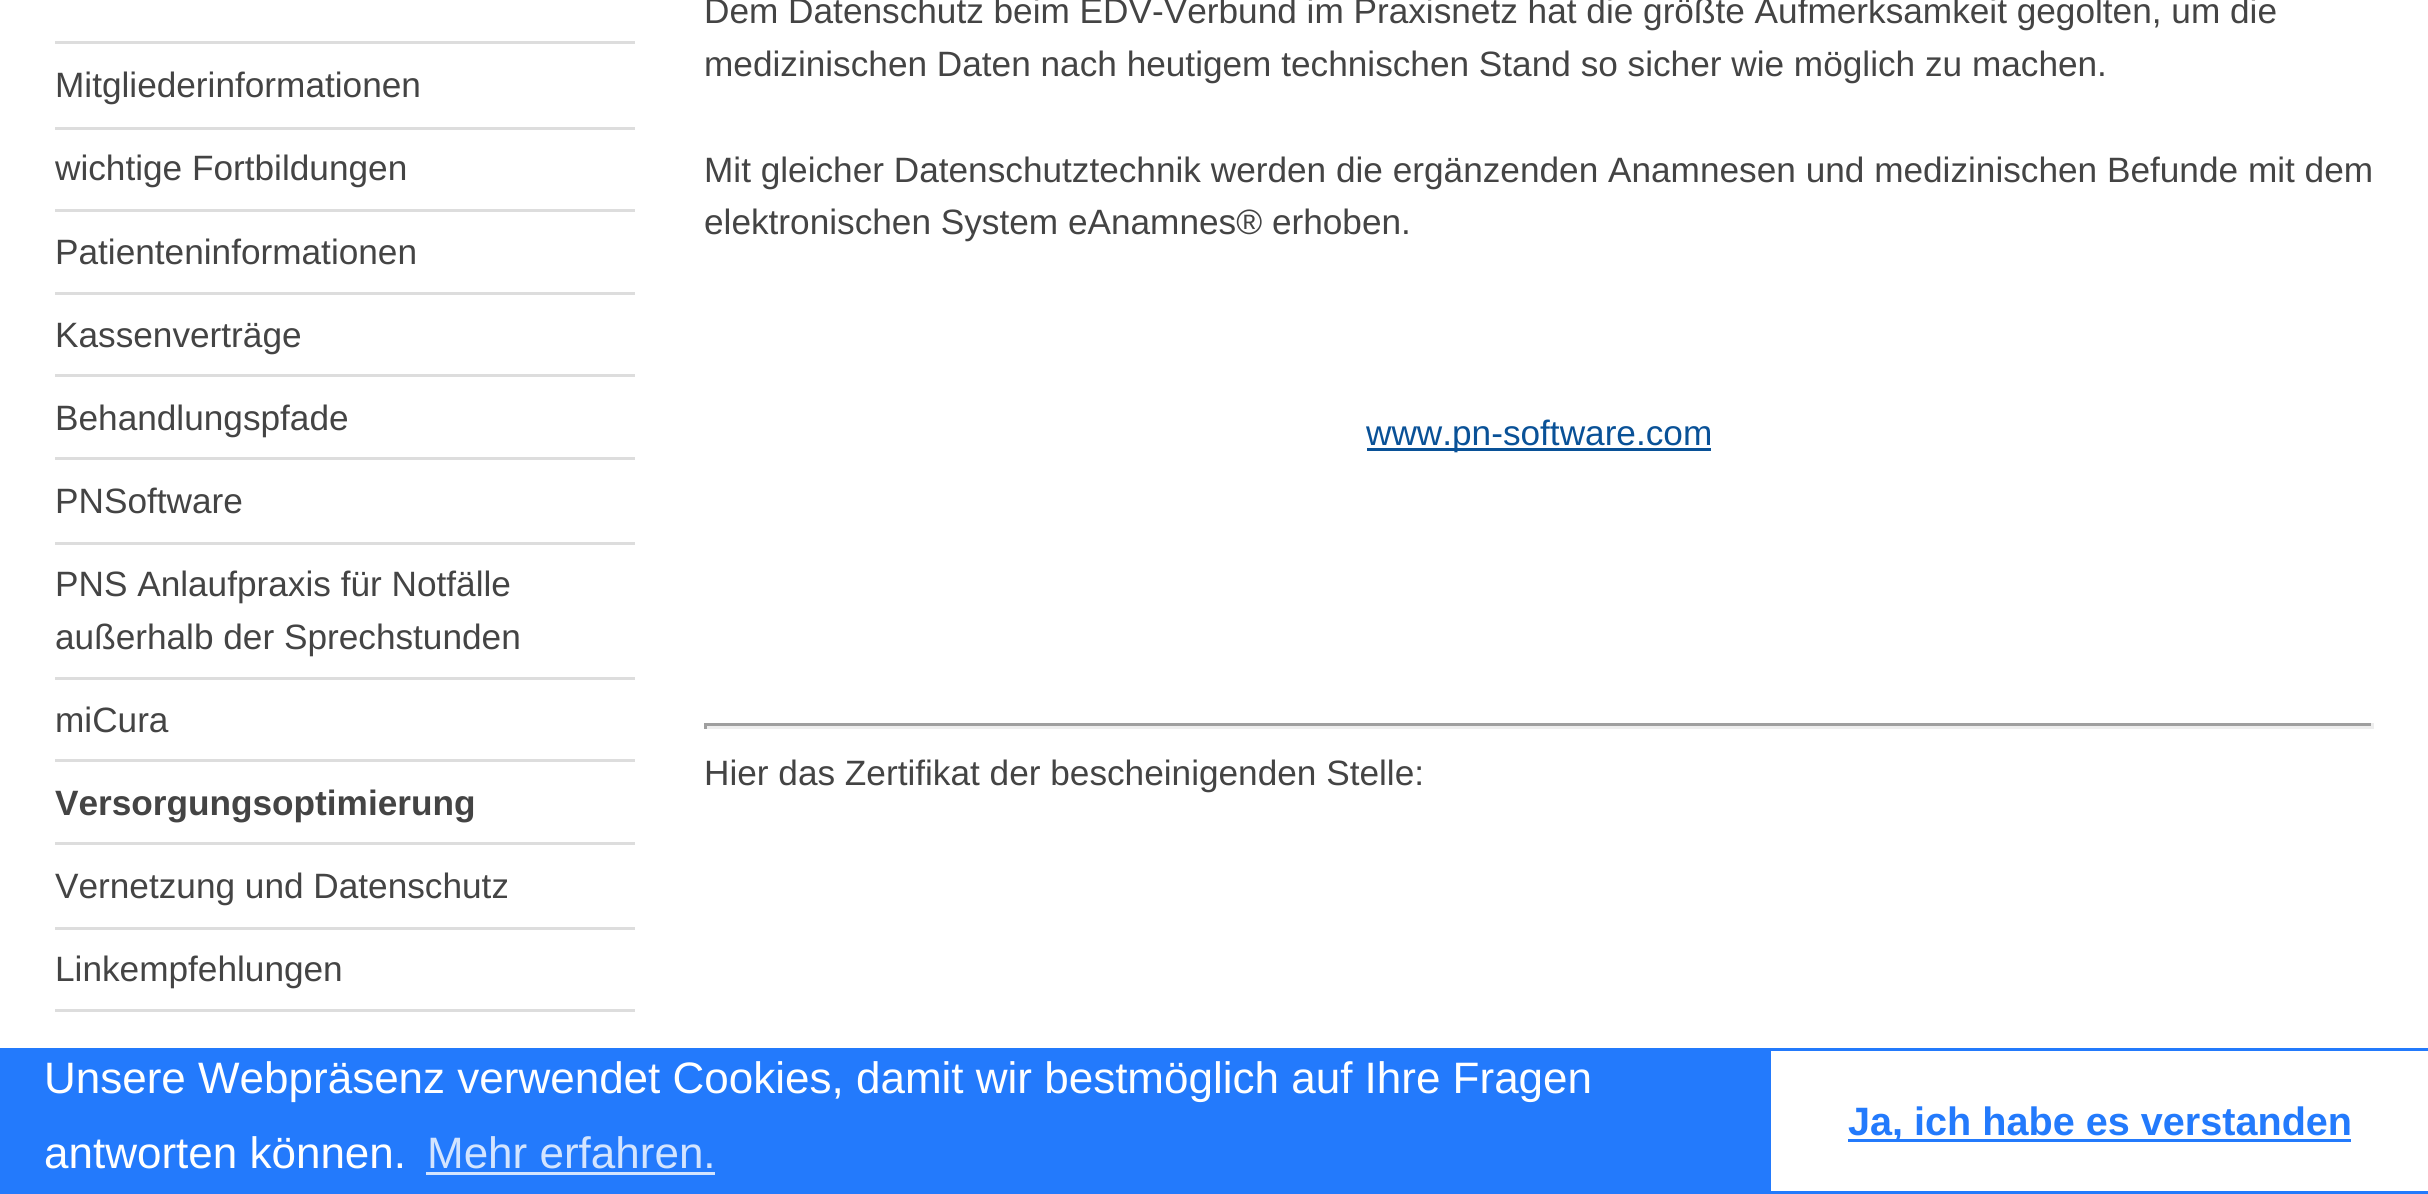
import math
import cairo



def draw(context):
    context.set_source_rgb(1, 1, 1)
    context.paint()
    context.set_source_rgb(221 / 255, 221 / 255, 221 / 255)
    context.rectangle(55, 41, 580, 3)
    context.fill()
    context.rectangle(55, 127, 580, 3)
    context.fill()
    context.rectangle(55, 209, 580, 3)
    context.fill()
    context.rectangle(55, 292, 580, 3)
    context.fill()
    context.rectangle(55, 374, 580, 3)
    context.fill()
    context.rectangle(55, 457, 580, 3)
    context.fill()
    context.rectangle(55, 542, 580, 3)
    context.fill()
    context.rectangle(55, 677, 580, 3)
    context.fill()
    context.rectangle(55, 759, 580, 3)
    context.fill()
    context.rectangle(55, 842, 580, 3)
    context.fill()
    context.rectangle(55, 927, 580, 3)
    context.fill()
    context.rectangle(55, 1009, 580, 3)
    context.fill()
    context.set_source_rgb(9 / 255, 81 / 255, 151 / 255)
    context.rectangle(1367, 448, 344, 3)
    context.fill()
    context.set_source_rgb(159 / 255, 159 / 255, 159 / 255)
    context.rectangle(704, 723, 1669, 3)
    context.fill()
    context.set_source_rgb(238 / 255, 238 / 255, 238 / 255)
    context.rectangle(2371, 723, 3, 6)
    context.fill()
    context.rectangle(704, 726, 1669, 3)
    context.fill()
    context.set_source_rgb(159 / 255, 159 / 255, 159 / 255)
    context.rectangle(704, 723, 3, 6)
    context.fill()
    context.set_source_rgb(35 / 255, 122 / 255, 252 / 255)
    context.rectangle(0, 1048, 2428, 146)
    context.fill()
    context.set_source_rgb(211 / 255, 228 / 255, 254 / 255)
    context.rectangle(426, 1172, 289, 3)
    context.fill()
    context.set_source_rgb(1, 1, 1)
    context.rectangle(1771, 1051, 657, 140)
    context.fill()
    context.set_source_rgb(35 / 255, 122 / 255, 252 / 255)
    context.rectangle(1848, 1139, 503, 3)
    context.fill()
    context.select_font_face("Liberation Sans")
    context.set_font_size(35.2)
    context.set_source_rgb(68 / 255, 68 / 255, 68 / 255)
    context.move_to(55, 97)
    context.show_text("Mitgliederinformationen")
    context.move_to(55, 180)
    context.show_text("wichtige Fortbildungen")
    context.move_to(55, 264)
    context.show_text("Patienteninformationen")
    context.move_to(55, 347)
    context.show_text("Kassenverträge")
    context.move_to(55, 430)
    context.show_text("Behandlungspfade")
    context.move_to(55, 513)
    context.show_text("PNSoftware")
    context.move_to(55, 596)
    context.show_text("PNS Anlaufpraxis für Notfälle")
    context.move_to(55, 649)
    context.show_text("außerhalb der Sprechstunden")
    context.move_to(55, 732)
    context.show_text("miCura")
    context.select_font_face("Liberation Sans", cairo.FontSlant.NORMAL, cairo.FontWeight.BOLD)
    context.move_to(55, 815)
    context.show_text("Versorgungsoptimierung")
    context.select_font_face("Liberation Sans")
    context.move_to(55, 898)
    context.show_text("Vernetzung und Datenschutz")
    context.move_to(55, 981)
    context.show_text("Linkempfehlungen")
    context.move_to(704, 23)
    context.show_text("Dem Datenschutz beim EDV-Verbund im Praxisnetz hat die größte Aufmerksamkeit gegolten, um die")
    context.move_to(704, 76)
    context.show_text("medizinischen Daten nach heutigem technischen Stand so sicher wie möglich zu machen.")
    context.move_to(704, 182)
    context.show_text("Mit gleicher Datenschutztechnik werden die ergänzenden Anamnesen und medizinischen Befunde mit dem")
    context.move_to(704, 234)
    context.show_text("elektronischen System eAnamnes® erhoben.")
    context.set_source_rgb(9 / 255, 81 / 255, 151 / 255)
    context.move_to(1366, 445)
    context.show_text("www.pn-software.com")
    context.set_source_rgb(68 / 255, 68 / 255, 68 / 255)
    context.move_to(704, 785)
    context.show_text("Hier das Zertifikat der bescheinigenden Stelle:")
    context.set_font_size(44)
    context.set_source_rgb(1, 1, 1)
    context.move_to(44, 1093)
    context.show_text("Unsere Webpräsenz verwendet Cookies, damit wir bestmöglich auf Ihre Fragen")
    context.move_to(44, 1168)
    context.show_text("antworten können.")
    context.set_source_rgb(211 / 255, 228 / 255, 254 / 255)
    context.move_to(427, 1168)
    context.show_text("Mehr erfahren.")
    context.select_font_face("Liberation Sans", cairo.FontSlant.NORMAL, cairo.FontWeight.BOLD)
    context.set_font_size(39.6)
    context.set_source_rgb(35 / 255, 122 / 255, 252 / 255)
    context.move_to(1848, 1135)
    context.show_text("Ja, ich habe es verstanden")


surface = cairo.ImageSurface(cairo.Format.RGB24, 2428, 1194)
context = cairo.Context(surface)
options = cairo.FontOptions()
options.set_hint_metrics(cairo.HintMetrics.OFF)
options.set_hint_style(cairo.HintStyle.NONE)
context.set_font_options(options)
context.set_miter_limit(4)
draw(context)
surface.write_to_png("out.png")
